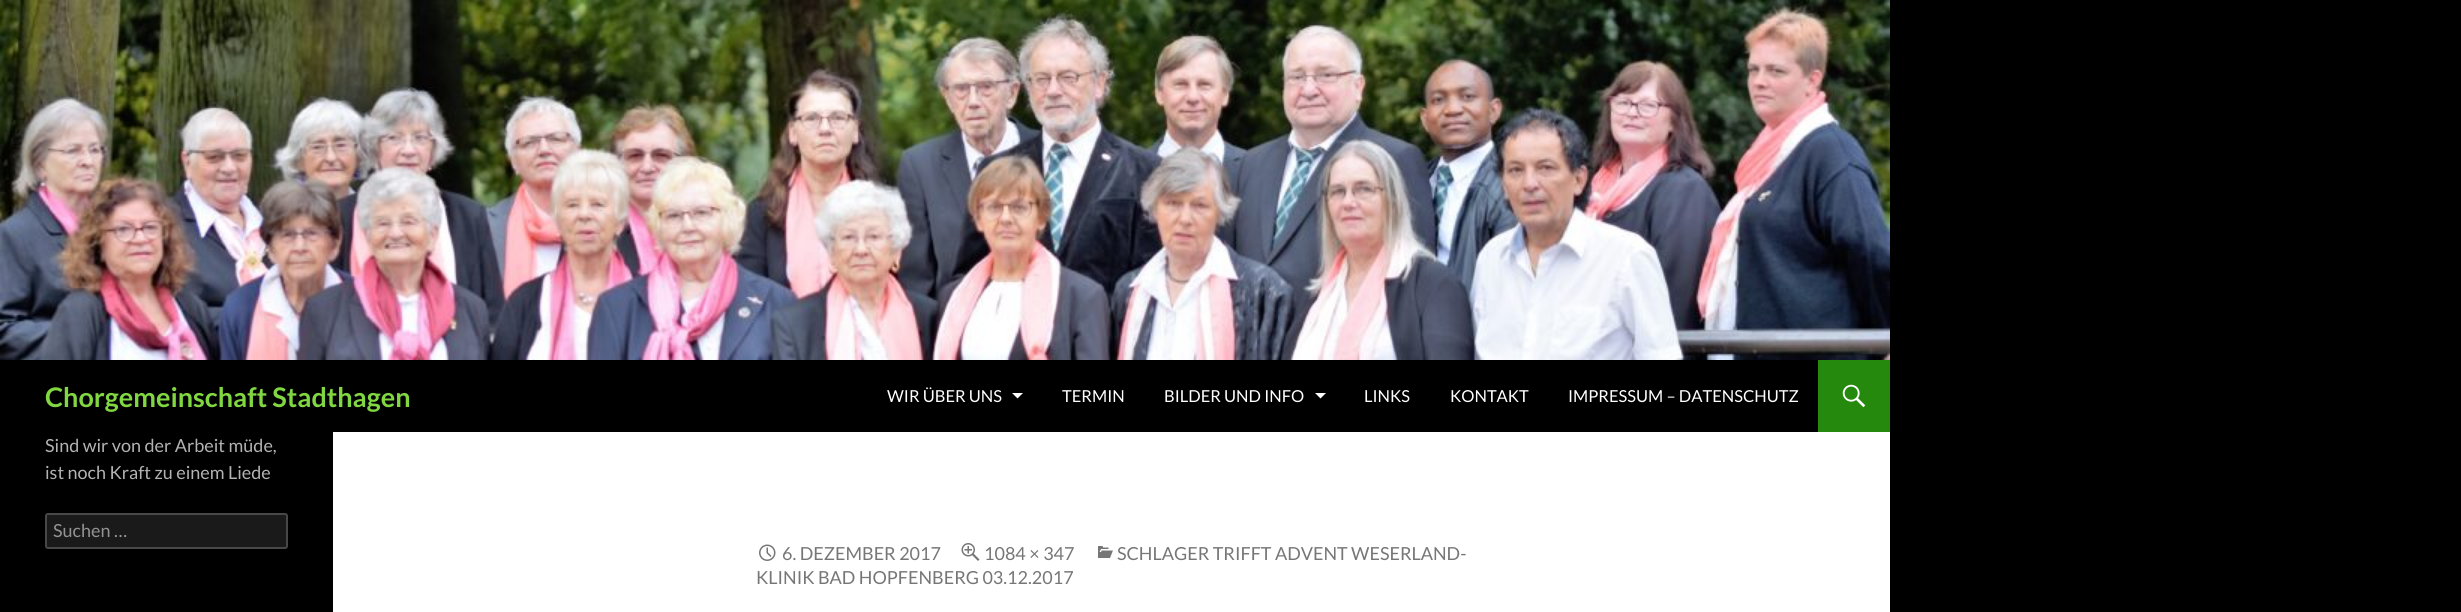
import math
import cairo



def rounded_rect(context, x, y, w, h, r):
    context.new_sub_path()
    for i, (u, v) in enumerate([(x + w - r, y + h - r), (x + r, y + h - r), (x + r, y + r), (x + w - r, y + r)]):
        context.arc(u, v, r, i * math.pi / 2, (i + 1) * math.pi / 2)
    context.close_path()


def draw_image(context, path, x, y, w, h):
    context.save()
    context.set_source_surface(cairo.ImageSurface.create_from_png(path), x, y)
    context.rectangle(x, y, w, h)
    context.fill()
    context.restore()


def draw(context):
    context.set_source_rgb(0, 0, 0)
    context.paint()
    context.set_source_rgb(1, 1, 1)
    context.rectangle(333, 432, 1557, 180)
    context.fill()
    draw_image(context, "images/1.png", 0, 0, 1890, 360)
    context.new_path()
    context.move_to(1012, 393)
    context.line_to(1017.5, 398.5)
    context.line_to(1023, 393)
    context.close_path()
    context.fill()
    context.new_path()
    context.move_to(1315, 393)
    context.line_to(1320.5, 398.5)
    context.line_to(1326, 393)
    context.close_path()
    context.fill()
    context.set_source_rgb(36 / 255, 137 / 255, 13 / 255)
    context.rectangle(1818, 360, 72, 72)
    context.fill()
    draw_image(context, "images/2.png", 1842, 384, 24, 24)
    context.set_source_rgb(26 / 255, 26 / 255, 26 / 255)
    rounded_rect(context, 45, 513, 243, 36, 3)
    context.fill()
    rounded_rect(context, 46, 514, 241, 34, 2)
    context.set_source_rgba(1, 1, 1, 0.2)
    context.stroke()
    draw_image(context, "images/3.png", 1098, 546, 15, 12)
    draw_image(context, "images/4.png", 759, 544, 17, 17)
    draw_image(context, "images/5.png", 961, 543, 19, 18)
    context.select_font_face("Lato", cairo.FontSlant.NORMAL, cairo.FontWeight.BOLD)
    context.set_font_size(27)
    context.set_source_rgb(129 / 255, 215 / 255, 66 / 255)
    context.move_to(45, 407)
    context.show_text("Chorgemeinschaft Stadthagen")
    context.select_font_face("Lato")
    context.set_font_size(16.5)
    context.set_source_rgb(1, 1, 1)
    context.move_to(887, 402)
    context.show_text("WIR ÜBER UNS")
    context.move_to(1062, 402)
    context.show_text("TERMIN")
    context.move_to(1164, 402)
    context.show_text("BILDER UND INFO")
    context.move_to(1364, 402)
    context.show_text("LINKS")
    context.move_to(1450, 402)
    context.show_text("KONTAKT")
    context.move_to(1568, 402)
    context.show_text("IMPRESSUM – DATENSCHUTZ")
    context.set_font_size(18)
    context.set_source_rgb(179 / 255, 179 / 255, 179 / 255)
    context.move_to(45, 452)
    context.show_text("Sind wir von der Arbeit müde,")
    context.move_to(45, 479)
    context.show_text("ist noch Kraft zu einem Liede")
    context.set_source_rgb(147 / 255, 147 / 255, 147 / 255)
    context.move_to(53, 537)
    context.show_text("Suchen …")
    context.set_source_rgb(118 / 255, 118 / 255, 118 / 255)
    context.move_to(1117, 560)
    context.show_text("SCHLAGER TRIFFT ADVENT WESERLAND-")
    context.move_to(756, 584)
    context.show_text("KLINIK BAD HOPFENBERG 03.12.2017")
    context.move_to(782, 560)
    context.show_text("6. DEZEMBER 2017")
    context.move_to(984, 560)
    context.show_text("1084 × 347")


surface = cairo.ImageSurface(cairo.Format.RGB24, 2461, 612)
context = cairo.Context(surface)
options = cairo.FontOptions()
options.set_hint_metrics(cairo.HintMetrics.OFF)
options.set_hint_style(cairo.HintStyle.NONE)
context.set_font_options(options)
context.set_miter_limit(4)
draw(context)
surface.write_to_png("out.png")
